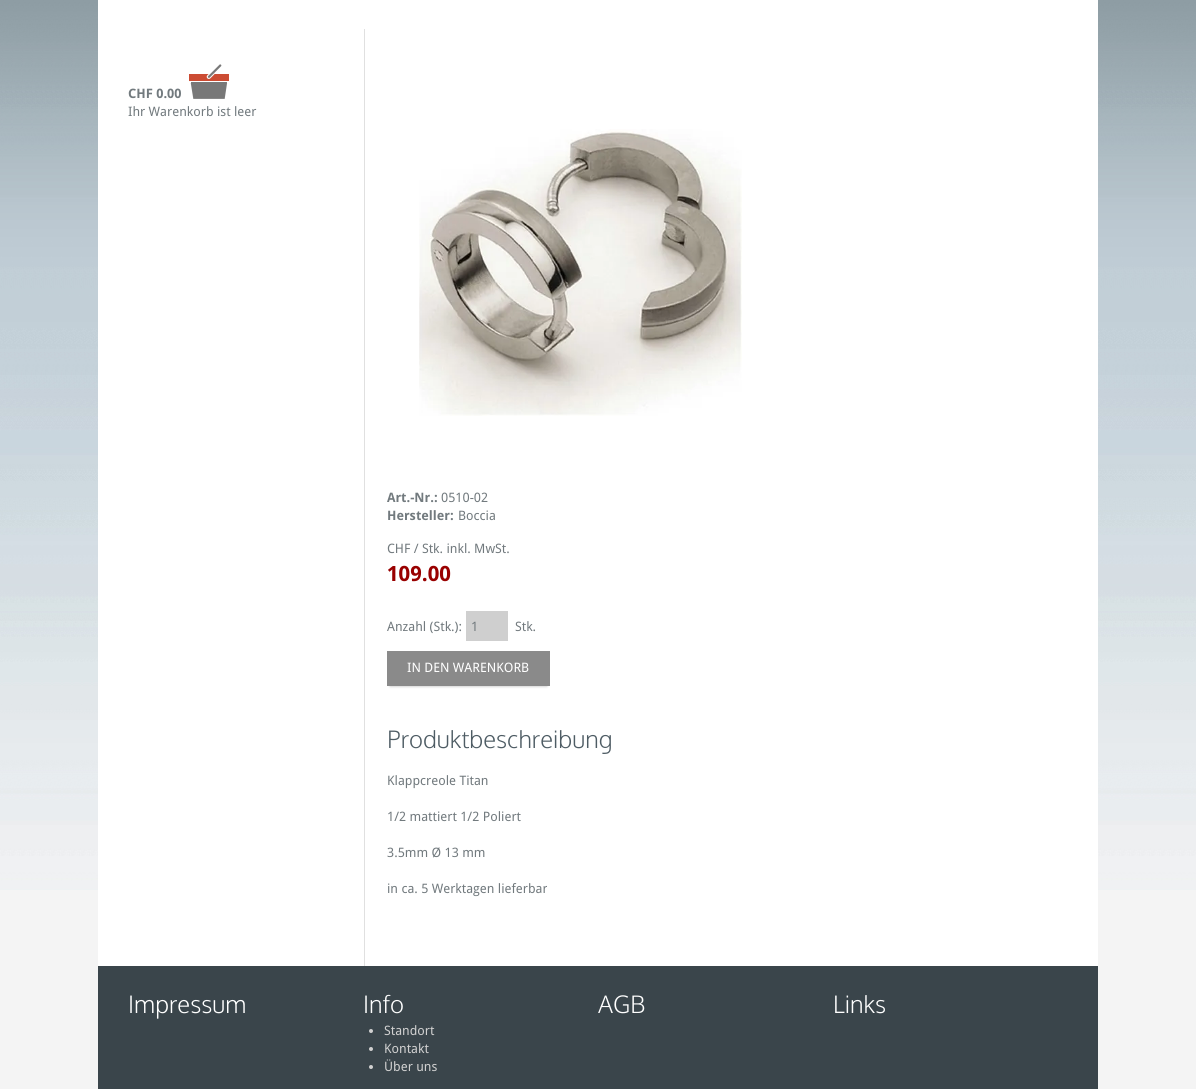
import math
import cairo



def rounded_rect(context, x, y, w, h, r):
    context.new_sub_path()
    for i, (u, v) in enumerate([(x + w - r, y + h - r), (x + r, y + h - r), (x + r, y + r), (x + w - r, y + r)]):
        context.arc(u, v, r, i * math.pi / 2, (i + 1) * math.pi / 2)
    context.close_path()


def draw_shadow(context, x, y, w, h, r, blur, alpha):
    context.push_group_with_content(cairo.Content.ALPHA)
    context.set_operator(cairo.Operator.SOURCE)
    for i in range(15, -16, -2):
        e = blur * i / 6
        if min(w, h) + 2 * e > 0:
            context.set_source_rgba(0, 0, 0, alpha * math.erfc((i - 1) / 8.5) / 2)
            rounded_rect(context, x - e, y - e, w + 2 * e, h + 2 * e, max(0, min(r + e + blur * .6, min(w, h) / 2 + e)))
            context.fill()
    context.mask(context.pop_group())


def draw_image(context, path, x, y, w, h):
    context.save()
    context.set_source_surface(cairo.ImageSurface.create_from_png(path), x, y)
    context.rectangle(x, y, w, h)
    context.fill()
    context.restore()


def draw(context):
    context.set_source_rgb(244 / 255, 244 / 255, 244 / 255)
    context.paint()
    draw_image(context, "images/1.png", 0, 0, 1196, 890)
    context.set_source_rgb(1, 1, 1)
    context.rectangle(98, 0, 1000, 966)
    context.fill()
    draw_image(context, "images/2.png", 189, 64, 40, 35)
    context.set_source_rgb(224 / 255, 224 / 255, 224 / 255)
    context.rectangle(364, 29, 1, 937)
    context.fill()
    draw_image(context, "images/3.png", 419, 129, 323, 287)
    context.set_source_rgb(207 / 255, 207 / 255, 207 / 255)
    context.rectangle(466, 611, 42, 30)
    context.fill()
    context.set_source_rgb(0, 0, 0)
    draw_shadow(context, 390, 657, 157, 29, 0, 1.5, 0.3)
    context.set_source_rgb(138 / 255, 138 / 255, 138 / 255)
    context.rectangle(387, 651, 163, 35)
    context.fill()
    context.set_source_rgb(58 / 255, 69 / 255, 75 / 255)
    context.rectangle(98, 966, 1000, 123)
    context.fill()
    context.set_source_rgb(208 / 255, 208 / 255, 208 / 255)
    context.arc(371, 1031, 2, 0, 2 * math.pi)
    context.fill()
    context.arc(371, 1049, 2, 0, 2 * math.pi)
    context.fill()
    context.arc(371, 1067, 2, 0, 2 * math.pi)
    context.fill()
    context.select_font_face("Droid Sans", cairo.FontSlant.NORMAL, cairo.FontWeight.BOLD)
    context.set_font_size(13)
    context.set_source_rgb(114 / 255, 122 / 255, 126 / 255)
    context.move_to(128, 98)
    context.show_text("CHF 0.00")
    context.select_font_face("Droid Sans")
    context.move_to(128, 116)
    context.show_text("Ihr Warenkorb ist leer")
    context.select_font_face("Droid Sans", cairo.FontSlant.NORMAL, cairo.FontWeight.BOLD)
    context.move_to(387, 502)
    context.show_text("Art.-Nr.:")
    context.select_font_face("Droid Sans")
    context.move_to(441, 502)
    context.show_text("0510-02")
    context.select_font_face("Droid Sans", cairo.FontSlant.NORMAL, cairo.FontWeight.BOLD)
    context.move_to(387, 520)
    context.show_text("Hersteller:")
    context.select_font_face("Droid Sans")
    context.move_to(458, 520)
    context.show_text("Boccia")
    context.move_to(387, 553)
    context.show_text("CHF / Stk. inkl. MwSt.")
    context.select_font_face("Droid Sans", cairo.FontSlant.NORMAL, cairo.FontWeight.BOLD)
    context.set_font_size(21)
    context.set_source_rgb(153 / 255, 0, 0)
    context.move_to(387, 581)
    context.show_text("109.00")
    context.select_font_face("Droid Sans")
    context.set_font_size(13)
    context.set_source_rgb(114 / 255, 122 / 255, 126 / 255)
    context.move_to(387, 631)
    context.show_text("Anzahl (Stk.):")
    context.move_to(471, 631)
    context.show_text("1")
    context.move_to(515, 631)
    context.show_text("Stk.")
    context.set_source_rgb(1, 1, 1)
    context.move_to(407, 672)
    context.show_text("IN DEN WARENKORB")
    context.select_font_face("Oxygen Light")
    context.set_font_size(24)
    context.set_source_rgb(78 / 255, 92 / 255, 100 / 255)
    context.move_to(387, 748)
    context.show_text("Produktbeschreibung")
    context.select_font_face("Droid Sans")
    context.set_font_size(13)
    context.set_source_rgb(114 / 255, 122 / 255, 126 / 255)
    context.move_to(387, 785)
    context.show_text("Klappcreole Titan")
    context.move_to(387, 821)
    context.show_text("1/2 mattiert 1/2 Poliert")
    context.move_to(387, 857)
    context.show_text("3.5mm Ø 13 mm")
    context.move_to(387, 893)
    context.show_text("in ca. 5 Werktagen lieferbar")
    context.select_font_face("Oxygen Light")
    context.set_font_size(24)
    context.set_source_rgb(1, 1, 1)
    context.move_to(128, 1013)
    context.show_text("Impressum")
    context.move_to(363, 1013)
    context.show_text("Info")
    context.select_font_face("Droid Sans")
    context.set_font_size(13)
    context.set_source_rgb(208 / 255, 208 / 255, 208 / 255)
    context.move_to(384, 1035)
    context.show_text("Standort")
    context.move_to(384, 1053)
    context.show_text("Kontakt")
    context.move_to(384, 1071)
    context.show_text("Über uns")
    context.select_font_face("Oxygen Light")
    context.set_font_size(24)
    context.set_source_rgb(1, 1, 1)
    context.move_to(598, 1013)
    context.show_text("AGB")
    context.move_to(833, 1013)
    context.show_text("Links")


surface = cairo.ImageSurface(cairo.Format.RGB24, 1196, 1089)
context = cairo.Context(surface)
options = cairo.FontOptions()
options.set_hint_metrics(cairo.HintMetrics.OFF)
options.set_hint_style(cairo.HintStyle.NONE)
context.set_font_options(options)
context.set_miter_limit(4)
draw(context)
surface.write_to_png("out.png")
